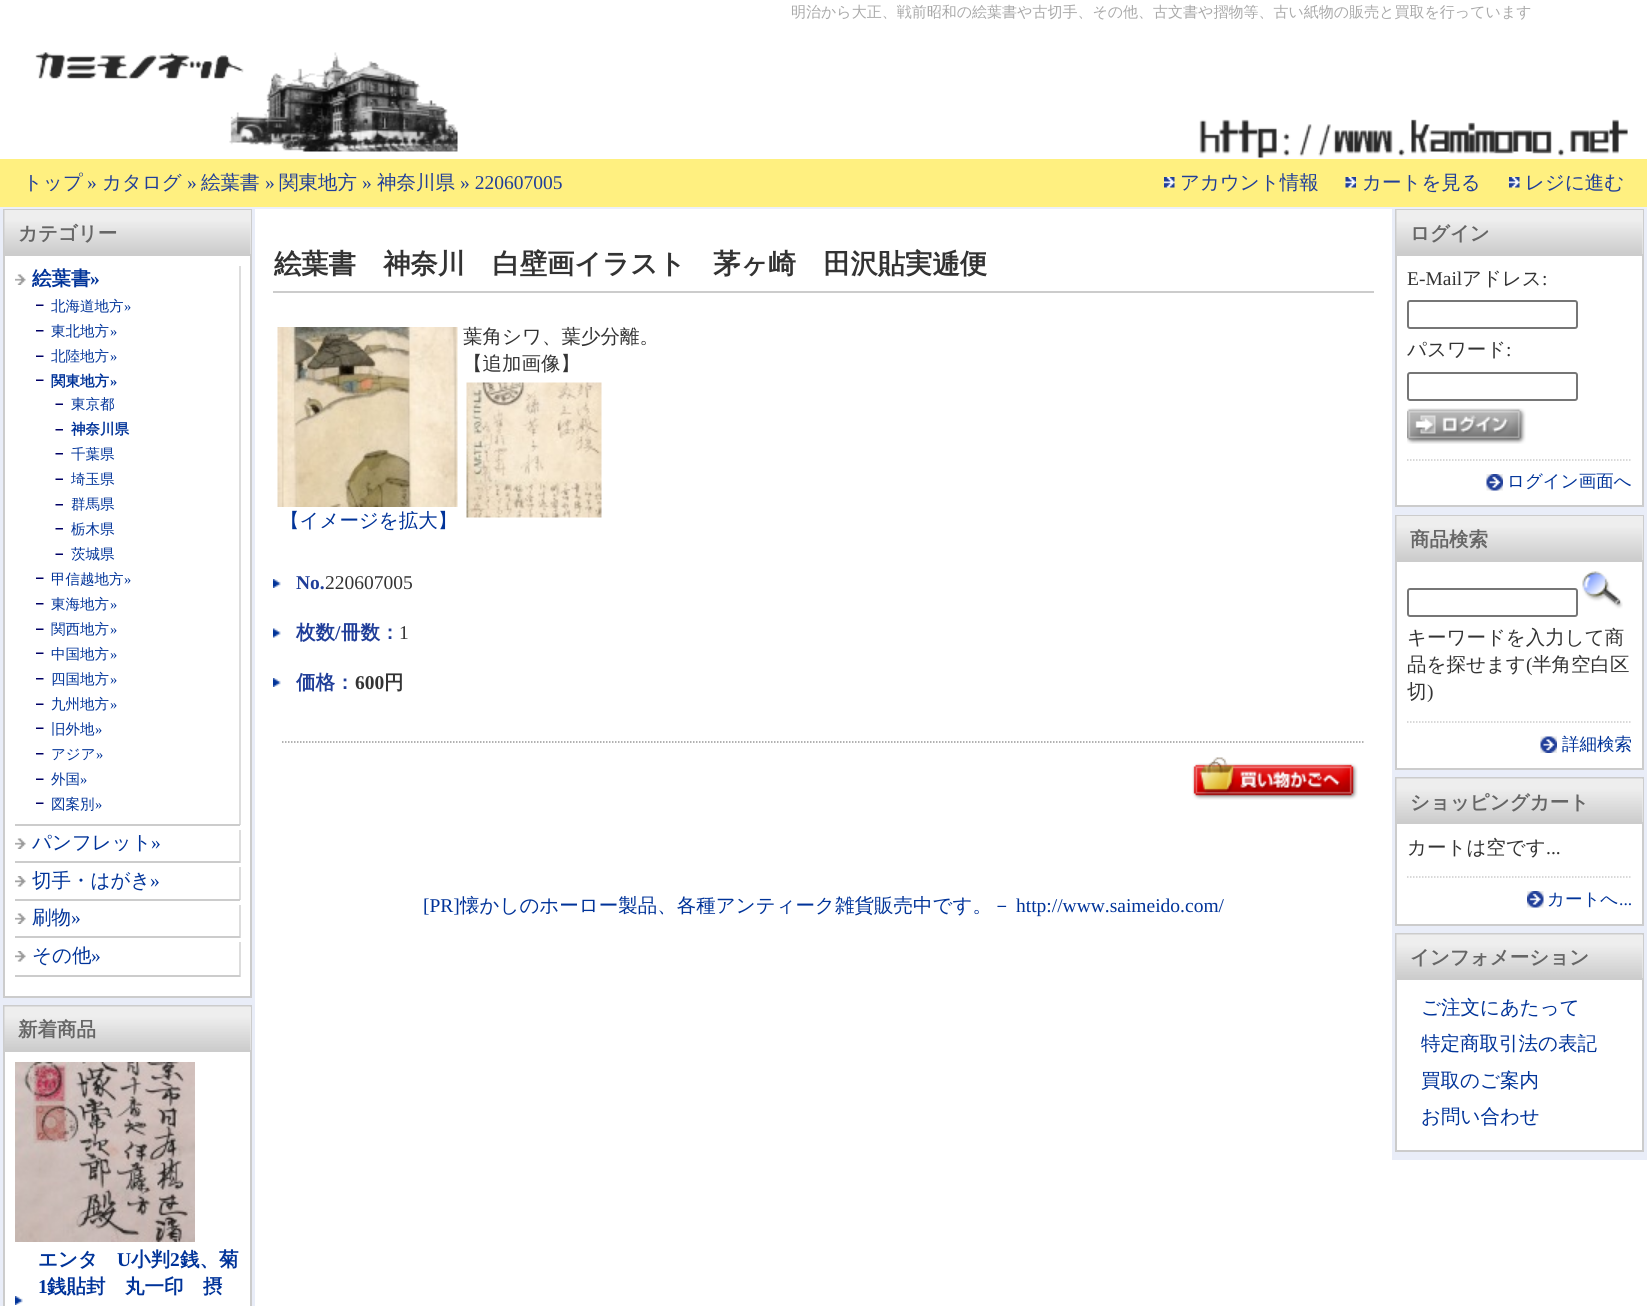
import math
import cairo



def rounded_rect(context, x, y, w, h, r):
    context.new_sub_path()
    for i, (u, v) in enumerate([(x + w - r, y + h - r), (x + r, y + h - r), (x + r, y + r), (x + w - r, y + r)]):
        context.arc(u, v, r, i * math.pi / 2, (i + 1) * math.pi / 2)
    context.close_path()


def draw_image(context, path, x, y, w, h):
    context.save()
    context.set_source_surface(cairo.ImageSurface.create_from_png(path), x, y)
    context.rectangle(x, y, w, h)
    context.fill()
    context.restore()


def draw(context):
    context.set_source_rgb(1, 1, 1)
    context.paint()
    draw_image(context, "images/1.png", 35, 52, 423, 100)
    draw_image(context, "images/2.png", 1199, 119, 429, 40)
    context.set_source_rgb(1, 240 / 255, 128 / 255)
    context.rectangle(0, 159, 1647, 48)
    context.fill()
    context.set_source_rgb(236 / 255, 240 / 255, 249 / 255)
    context.rectangle(0, 207, 1647, 2)
    context.fill()
    draw_image(context, "images/3.png", 1164, 177, 11, 11)
    draw_image(context, "images/4.png", 1345, 177, 11, 11)
    draw_image(context, "images/3.png", 1509, 177, 11, 11)
    context.set_source_rgb(233 / 255, 237 / 255, 248 / 255)
    context.rectangle(0, 209, 255, 1097)
    context.fill()
    context.set_source_rgb(1, 1, 1)
    context.rectangle(5, 256, 245, 740)
    context.fill()
    context.rectangle(4, 210, 247, 787)
    context.set_source_rgb(204 / 255, 204 / 255, 204 / 255)
    context.stroke()
    context.set_source_rgb(238 / 255, 238 / 255, 238 / 255)
    context.rectangle(250, 210, 1, 44)
    context.fill()
    draw_image(context, "images/5.png", 4, 210, 247, 45)
    context.set_source_rgb(204 / 255, 204 / 255, 204 / 255)
    context.rectangle(5, 255, 246, 1)
    context.fill()
    draw_image(context, "images/6.png", 15, 274, 11, 11)
    context.set_source_rgb(221 / 255, 221 / 255, 221 / 255)
    context.rectangle(239, 266, 2, 559)
    context.fill()
    context.set_source_rgb(204 / 255, 204 / 255, 204 / 255)
    context.rectangle(15, 824, 225, 2)
    context.fill()
    draw_image(context, "images/7.png", 36, 304, 8, 2)
    draw_image(context, "images/8.png", 36, 330, 8, 2)
    draw_image(context, "images/7.png", 36, 355, 8, 2)
    draw_image(context, "images/7.png", 36, 379, 8, 2)
    draw_image(context, "images/9.png", 55, 403, 8, 2)
    draw_image(context, "images/10.png", 55, 429, 8, 2)
    draw_image(context, "images/10.png", 55, 453, 8, 2)
    draw_image(context, "images/9.png", 55, 478, 8, 2)
    draw_image(context, "images/10.png", 55, 504, 8, 2)
    draw_image(context, "images/10.png", 55, 528, 8, 2)
    draw_image(context, "images/9.png", 55, 553, 8, 2)
    draw_image(context, "images/7.png", 36, 577, 8, 2)
    draw_image(context, "images/8.png", 36, 603, 8, 2)
    draw_image(context, "images/7.png", 36, 628, 8, 2)
    draw_image(context, "images/7.png", 36, 652, 8, 2)
    draw_image(context, "images/8.png", 36, 678, 8, 2)
    draw_image(context, "images/7.png", 36, 703, 8, 2)
    draw_image(context, "images/7.png", 36, 727, 8, 2)
    draw_image(context, "images/8.png", 36, 753, 8, 2)
    draw_image(context, "images/7.png", 36, 778, 8, 2)
    draw_image(context, "images/7.png", 36, 802, 8, 2)
    draw_image(context, "images/6.png", 15, 838, 11, 11)
    context.set_source_rgb(221 / 255, 221 / 255, 221 / 255)
    context.rectangle(239, 830, 2, 33)
    context.fill()
    context.set_source_rgb(204 / 255, 204 / 255, 204 / 255)
    context.rectangle(15, 861, 225, 2)
    context.fill()
    draw_image(context, "images/11.png", 15, 876, 11, 11)
    context.set_source_rgb(221 / 255, 221 / 255, 221 / 255)
    context.rectangle(239, 867, 2, 33)
    context.fill()
    context.set_source_rgb(204 / 255, 204 / 255, 204 / 255)
    context.rectangle(15, 899, 225, 2)
    context.fill()
    draw_image(context, "images/6.png", 15, 913, 11, 11)
    context.set_source_rgb(221 / 255, 221 / 255, 221 / 255)
    context.rectangle(239, 905, 2, 33)
    context.fill()
    context.set_source_rgb(204 / 255, 204 / 255, 204 / 255)
    context.rectangle(15, 936, 225, 2)
    context.fill()
    draw_image(context, "images/11.png", 15, 951, 11, 11)
    context.set_source_rgb(221 / 255, 221 / 255, 221 / 255)
    context.rectangle(239, 942, 2, 35)
    context.fill()
    context.set_source_rgb(204 / 255, 204 / 255, 204 / 255)
    context.rectangle(15, 975, 225, 2)
    context.fill()
    context.set_source_rgb(1, 1, 1)
    context.rectangle(5, 1052, 245, 254)
    context.fill()
    context.rectangle(4, 1006, 247, 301)
    context.set_source_rgb(204 / 255, 204 / 255, 204 / 255)
    context.stroke()
    context.set_source_rgb(238 / 255, 238 / 255, 238 / 255)
    context.rectangle(250, 1007, 1, 43)
    context.fill()
    draw_image(context, "images/12.png", 4, 1006, 247, 46)
    context.set_source_rgb(204 / 255, 204 / 255, 204 / 255)
    context.rectangle(5, 1051, 246, 1)
    context.fill()
    draw_image(context, "images/13.png", 15, 1062, 180, 180)
    draw_image(context, "images/14.png", 15, 1296, 8, 9)
    context.rectangle(273, 291, 1101, 2)
    context.fill()
    draw_image(context, "images/15.png", 466, 382, 136, 136)
    draw_image(context, "images/16.png", 277, 327, 181, 180)
    draw_image(context, "images/17.png", 273, 579, 8, 9)
    draw_image(context, "images/18.png", 273, 628, 8, 10)
    draw_image(context, "images/17.png", 273, 678, 8, 9)
    context.new_path()
    context.move_to(282, 742)
    context.line_to(1365, 742)
    context.set_source_rgb(153 / 255, 153 / 255, 153 / 255)
    context.set_line_width(1.5)
    context.set_dash([1.5, 1.5])
    context.stroke()
    draw_image(context, "images/19.png", 1192, 757, 166, 43)
    context.set_source_rgb(233 / 255, 237 / 255, 248 / 255)
    context.rectangle(1392, 209, 255, 951)
    context.fill()
    context.set_source_rgb(1, 1, 1)
    context.rectangle(1397, 256, 245, 249)
    context.fill()
    context.rectangle(1396, 210, 247, 296)
    context.set_source_rgb(204 / 255, 204 / 255, 204 / 255)
    context.set_line_width(2)
    context.set_dash([])
    context.stroke()
    context.set_source_rgb(238 / 255, 238 / 255, 238 / 255)
    context.rectangle(1642, 210, 1, 44)
    context.fill()
    draw_image(context, "images/5.png", 1396, 210, 247, 45)
    context.set_source_rgb(204 / 255, 204 / 255, 204 / 255)
    context.rectangle(1397, 255, 246, 1)
    context.fill()
    rounded_rect(context, 1408, 301, 169, 27, 2)
    context.set_source_rgb(118 / 255, 118 / 255, 118 / 255)
    context.stroke()
    rounded_rect(context, 1408, 373, 169, 27, 2)
    context.stroke()
    draw_image(context, "images/20.png", 1407, 408, 119, 36)
    context.new_path()
    context.move_to(1407, 460)
    context.line_to(1632, 460)
    context.set_source_rgb(204 / 255, 204 / 255, 204 / 255)
    context.set_line_width(1.5)
    context.set_dash([1.5, 1.5])
    context.stroke()
    draw_image(context, "images/21.png", 1486, 474, 17, 17)
    context.set_source_rgb(1, 1, 1)
    context.rectangle(1397, 562, 245, 206)
    context.fill()
    context.rectangle(1396, 516, 247, 253)
    context.set_source_rgb(204 / 255, 204 / 255, 204 / 255)
    context.set_line_width(2)
    context.set_dash([])
    context.stroke()
    context.set_source_rgb(238 / 255, 238 / 255, 238 / 255)
    context.rectangle(1642, 516, 1, 44)
    context.fill()
    draw_image(context, "images/5.png", 1396, 516, 247, 45)
    context.set_source_rgb(204 / 255, 204 / 255, 204 / 255)
    context.rectangle(1397, 561, 246, 1)
    context.fill()
    rounded_rect(context, 1408, 589, 169, 27, 2)
    context.set_source_rgb(118 / 255, 118 / 255, 118 / 255)
    context.stroke()
    draw_image(context, "images/22.png", 1582, 571, 41, 38)
    context.new_path()
    context.move_to(1407, 722)
    context.line_to(1632, 722)
    context.set_source_rgb(204 / 255, 204 / 255, 204 / 255)
    context.set_line_width(1.5)
    context.set_dash([1.5, 1.5])
    context.stroke()
    draw_image(context, "images/23.png", 1540, 736, 17, 17)
    context.set_source_rgb(1, 1, 1)
    context.rectangle(1397, 824, 245, 100)
    context.fill()
    context.rectangle(1396, 778, 247, 147)
    context.set_source_rgb(204 / 255, 204 / 255, 204 / 255)
    context.set_line_width(2)
    context.set_dash([])
    context.stroke()
    context.set_source_rgb(238 / 255, 238 / 255, 238 / 255)
    context.rectangle(1642, 779, 1, 43)
    context.fill()
    draw_image(context, "images/12.png", 1396, 778, 247, 46)
    context.set_source_rgb(204 / 255, 204 / 255, 204 / 255)
    context.rectangle(1397, 823, 246, 1)
    context.fill()
    context.new_path()
    context.move_to(1407, 877)
    context.line_to(1632, 877)
    context.set_line_width(1.5)
    context.set_dash([1.5, 1.5])
    context.stroke()
    draw_image(context, "images/24.png", 1527, 891, 17, 17)
    context.set_source_rgb(1, 1, 1)
    context.rectangle(1397, 980, 245, 170)
    context.fill()
    context.rectangle(1396, 934, 247, 217)
    context.set_source_rgb(204 / 255, 204 / 255, 204 / 255)
    context.set_line_width(2)
    context.set_dash([])
    context.stroke()
    context.set_source_rgb(238 / 255, 238 / 255, 238 / 255)
    context.rectangle(1642, 935, 1, 43)
    context.fill()
    draw_image(context, "images/25.png", 1396, 934, 247, 46)
    context.set_source_rgb(204 / 255, 204 / 255, 204 / 255)
    context.rectangle(1397, 979, 246, 1)
    context.fill()
    context.select_font_face("WenQuanYi Zen Hei Medium")
    context.set_font_size(15)
    context.set_source_rgb(169 / 255, 169 / 255, 169 / 255)
    context.move_to(791, 17)
    context.show_text("明治から大正、戦前昭和の絵葉書や古切手、その他、古文書や摺物等、古い紙物の販売と買取を行っています")
    context.set_font_size(19.5)
    context.set_source_rgb(32 / 255, 62 / 255, 153 / 255)
    context.move_to(23, 189)
    context.show_text("トップ")
    context.select_font_face("Liberation Serif")
    context.move_to(87, 189)
    context.show_text("»")
    context.select_font_face("WenQuanYi Zen Hei Medium")
    context.move_to(102, 189)
    context.show_text("カタログ")
    context.select_font_face("Liberation Serif")
    context.move_to(187, 189)
    context.show_text("»")
    context.select_font_face("WenQuanYi Zen Hei Medium")
    context.move_to(201, 189)
    context.show_text("絵葉書")
    context.select_font_face("Liberation Serif")
    context.move_to(265, 189)
    context.show_text("»")
    context.select_font_face("WenQuanYi Zen Hei Medium")
    context.move_to(279, 189)
    context.show_text("関東地方")
    context.select_font_face("Liberation Serif")
    context.move_to(362, 189)
    context.show_text("»")
    context.select_font_face("WenQuanYi Zen Hei Medium")
    context.move_to(377, 189)
    context.show_text("神奈川県")
    context.select_font_face("Liberation Serif")
    context.move_to(460, 189)
    context.show_text("» 220607005")
    context.select_font_face("WenQuanYi Zen Hei Medium")
    context.move_to(1180, 189)
    context.show_text("アカウント情報")
    context.move_to(1362, 189)
    context.show_text("カートを見る")
    context.move_to(1525, 189)
    context.show_text("レジに進む")
    context.select_font_face("WenQuanYi Zen Hei", cairo.FontSlant.NORMAL, cairo.FontWeight.BOLD)
    context.set_source_rgb(102 / 255, 102 / 255, 102 / 255)
    context.move_to(18, 240)
    context.show_text("カテゴリー")
    context.set_source_rgb(0, 51 / 255, 153 / 255)
    context.move_to(32, 285)
    context.show_text("絵葉書")
    context.select_font_face("Liberation Serif", cairo.FontSlant.NORMAL, cairo.FontWeight.BOLD)
    context.move_to(90, 285)
    context.show_text("»")
    context.select_font_face("WenQuanYi Zen Hei Medium")
    context.set_font_size(14.5)
    context.move_to(51, 311)
    context.show_text("北海道地方")
    context.select_font_face("Liberation Serif")
    context.move_to(124, 311)
    context.show_text("»")
    context.select_font_face("WenQuanYi Zen Hei Medium")
    context.move_to(51, 336)
    context.show_text("東北地方")
    context.select_font_face("Liberation Serif")
    context.move_to(110, 336)
    context.show_text("»")
    context.select_font_face("WenQuanYi Zen Hei Medium")
    context.move_to(51, 361)
    context.show_text("北陸地方")
    context.select_font_face("Liberation Serif")
    context.move_to(110, 361)
    context.show_text("»")
    context.select_font_face("WenQuanYi Zen Hei", cairo.FontSlant.NORMAL, cairo.FontWeight.BOLD)
    context.move_to(51, 386)
    context.show_text("関東地方")
    context.select_font_face("Liberation Serif", cairo.FontSlant.NORMAL, cairo.FontWeight.BOLD)
    context.move_to(110, 386)
    context.show_text("»")
    context.select_font_face("WenQuanYi Zen Hei Medium")
    context.move_to(71, 409)
    context.show_text("東京都")
    context.select_font_face("WenQuanYi Zen Hei", cairo.FontSlant.NORMAL, cairo.FontWeight.BOLD)
    context.move_to(71, 434)
    context.show_text("神奈川県")
    context.select_font_face("WenQuanYi Zen Hei Medium")
    context.move_to(71, 459)
    context.show_text("千葉県")
    context.move_to(71, 484)
    context.show_text("埼玉県")
    context.move_to(71, 509)
    context.show_text("群馬県")
    context.move_to(71, 534)
    context.show_text("栃木県")
    context.move_to(71, 559)
    context.show_text("茨城県")
    context.move_to(51, 584)
    context.show_text("甲信越地方")
    context.select_font_face("Liberation Serif")
    context.move_to(124, 584)
    context.show_text("»")
    context.select_font_face("WenQuanYi Zen Hei Medium")
    context.move_to(51, 609)
    context.show_text("東海地方")
    context.select_font_face("Liberation Serif")
    context.move_to(110, 609)
    context.show_text("»")
    context.select_font_face("WenQuanYi Zen Hei Medium")
    context.move_to(51, 634)
    context.show_text("関西地方")
    context.select_font_face("Liberation Serif")
    context.move_to(110, 634)
    context.show_text("»")
    context.select_font_face("WenQuanYi Zen Hei Medium")
    context.move_to(51, 659)
    context.show_text("中国地方")
    context.select_font_face("Liberation Serif")
    context.move_to(110, 659)
    context.show_text("»")
    context.select_font_face("WenQuanYi Zen Hei Medium")
    context.move_to(51, 684)
    context.show_text("四国地方")
    context.select_font_face("Liberation Serif")
    context.move_to(110, 684)
    context.show_text("»")
    context.select_font_face("WenQuanYi Zen Hei Medium")
    context.move_to(51, 709)
    context.show_text("九州地方")
    context.select_font_face("Liberation Serif")
    context.move_to(110, 709)
    context.show_text("»")
    context.select_font_face("WenQuanYi Zen Hei Medium")
    context.move_to(51, 734)
    context.show_text("旧外地")
    context.select_font_face("Liberation Serif")
    context.move_to(95, 734)
    context.show_text("»")
    context.select_font_face("WenQuanYi Zen Hei Medium")
    context.move_to(51, 759)
    context.show_text("アジア")
    context.select_font_face("Liberation Serif")
    context.move_to(96, 759)
    context.show_text("»")
    context.select_font_face("WenQuanYi Zen Hei Medium")
    context.move_to(51, 784)
    context.show_text("外国")
    context.select_font_face("Liberation Serif")
    context.move_to(80, 784)
    context.show_text("»")
    context.select_font_face("WenQuanYi Zen Hei Medium")
    context.move_to(51, 809)
    context.show_text("図案別")
    context.select_font_face("Liberation Serif")
    context.move_to(95, 809)
    context.show_text("»")
    context.select_font_face("WenQuanYi Zen Hei Medium")
    context.set_font_size(19.5)
    context.move_to(32, 849)
    context.show_text("パンフレット")
    context.select_font_face("Liberation Serif")
    context.move_to(151, 849)
    context.show_text("»")
    context.select_font_face("WenQuanYi Zen Hei Medium")
    context.move_to(32, 887)
    context.show_text("切手・はがき")
    context.select_font_face("Liberation Serif")
    context.move_to(150, 887)
    context.show_text("»")
    context.select_font_face("WenQuanYi Zen Hei Medium")
    context.move_to(32, 924)
    context.show_text("刷物")
    context.select_font_face("Liberation Serif")
    context.move_to(71, 924)
    context.show_text("»")
    context.select_font_face("WenQuanYi Zen Hei Medium")
    context.move_to(32, 962)
    context.show_text("その他")
    context.select_font_face("Liberation Serif")
    context.move_to(91, 962)
    context.show_text("»")
    context.select_font_face("WenQuanYi Zen Hei", cairo.FontSlant.NORMAL, cairo.FontWeight.BOLD)
    context.set_source_rgb(102 / 255, 102 / 255, 102 / 255)
    context.move_to(18, 1036)
    context.show_text("新着商品")
    context.set_source_rgb(0, 51 / 255, 153 / 255)
    context.move_to(38, 1266)
    context.show_text("エンタ")
    context.select_font_face("Liberation Serif", cairo.FontSlant.NORMAL, cairo.FontWeight.BOLD)
    context.move_to(117, 1266)
    context.show_text("U")
    context.select_font_face("WenQuanYi Zen Hei", cairo.FontSlant.NORMAL, cairo.FontWeight.BOLD)
    context.move_to(131, 1266)
    context.show_text("小判")
    context.select_font_face("Liberation Serif", cairo.FontSlant.NORMAL, cairo.FontWeight.BOLD)
    context.move_to(170, 1266)
    context.show_text("2")
    context.select_font_face("WenQuanYi Zen Hei", cairo.FontSlant.NORMAL, cairo.FontWeight.BOLD)
    context.move_to(180, 1266)
    context.show_text("銭、菊")
    context.select_font_face("Liberation Serif", cairo.FontSlant.NORMAL, cairo.FontWeight.BOLD)
    context.move_to(38, 1293)
    context.show_text("1")
    context.select_font_face("WenQuanYi Zen Hei", cairo.FontSlant.NORMAL, cairo.FontWeight.BOLD)
    context.move_to(47, 1293)
    context.show_text("銭貼封　丸一印　摂")
    context.set_font_size(27.3)
    context.set_source_rgb(51 / 255, 51 / 255, 51 / 255)
    context.move_to(274, 273)
    context.show_text("絵葉書　神奈川　白壁画イラスト　茅ヶ崎　田沢貼実逓便")
    context.select_font_face("WenQuanYi Zen Hei Medium")
    context.set_font_size(19.5)
    context.move_to(463, 343)
    context.show_text("葉角シワ、葉少分離。")
    context.move_to(463, 370)
    context.show_text("【追加画像】")
    context.set_source_rgb(0, 51 / 255, 153 / 255)
    context.move_to(280, 527)
    context.show_text("【イメージを拡大】")
    context.select_font_face("Liberation Serif", cairo.FontSlant.NORMAL, cairo.FontWeight.BOLD)
    context.set_source_rgb(32 / 255, 62 / 255, 153 / 255)
    context.move_to(296, 589)
    context.show_text("No.")
    context.select_font_face("Liberation Serif")
    context.set_source_rgb(51 / 255, 51 / 255, 51 / 255)
    context.move_to(325, 589)
    context.show_text("220607005")
    context.select_font_face("WenQuanYi Zen Hei", cairo.FontSlant.NORMAL, cairo.FontWeight.BOLD)
    context.set_source_rgb(32 / 255, 62 / 255, 153 / 255)
    context.move_to(296, 639)
    context.show_text("枚数")
    context.select_font_face("Liberation Serif", cairo.FontSlant.NORMAL, cairo.FontWeight.BOLD)
    context.move_to(335, 639)
    context.show_text("/")
    context.select_font_face("WenQuanYi Zen Hei", cairo.FontSlant.NORMAL, cairo.FontWeight.BOLD)
    context.move_to(341, 639)
    context.show_text("冊数：")
    context.select_font_face("Liberation Serif")
    context.set_source_rgb(51 / 255, 51 / 255, 51 / 255)
    context.move_to(399, 639)
    context.show_text("1")
    context.select_font_face("WenQuanYi Zen Hei", cairo.FontSlant.NORMAL, cairo.FontWeight.BOLD)
    context.set_source_rgb(32 / 255, 62 / 255, 153 / 255)
    context.move_to(296, 689)
    context.show_text("価格：")
    context.select_font_face("Liberation Serif", cairo.FontSlant.NORMAL, cairo.FontWeight.BOLD)
    context.set_source_rgb(51 / 255, 51 / 255, 51 / 255)
    context.move_to(355, 689)
    context.show_text("600")
    context.select_font_face("WenQuanYi Zen Hei", cairo.FontSlant.NORMAL, cairo.FontWeight.BOLD)
    context.move_to(384, 689)
    context.show_text("円")
    context.select_font_face("Liberation Serif")
    context.set_source_rgb(0, 51 / 255, 153 / 255)
    context.move_to(423, 912)
    context.show_text("[PR]")
    context.select_font_face("WenQuanYi Zen Hei Medium")
    context.move_to(460, 912)
    context.show_text("懐かしのホーロー製品、各種アンティーク雑貨販売中です。－")
    context.select_font_face("Liberation Serif")
    context.move_to(1016, 912)
    context.show_text("http://www.saimeido.com/")
    context.select_font_face("WenQuanYi Zen Hei", cairo.FontSlant.NORMAL, cairo.FontWeight.BOLD)
    context.set_source_rgb(102 / 255, 102 / 255, 102 / 255)
    context.move_to(1410, 240)
    context.show_text("ログイン")
    context.select_font_face("Liberation Serif")
    context.set_source_rgb(51 / 255, 51 / 255, 51 / 255)
    context.move_to(1407, 285)
    context.show_text("E-Mail")
    context.select_font_face("WenQuanYi Zen Hei Medium")
    context.move_to(1462, 285)
    context.show_text("アドレス")
    context.select_font_face("Liberation Serif")
    context.move_to(1542, 285)
    context.show_text(":")
    context.select_font_face("WenQuanYi Zen Hei Medium")
    context.move_to(1407, 356)
    context.show_text("パスワード")
    context.select_font_face("Liberation Serif")
    context.move_to(1506, 356)
    context.show_text(":")
    context.select_font_face("WenQuanYi Zen Hei Medium")
    context.set_font_size(17.5)
    context.set_source_rgb(0, 51 / 255, 153 / 255)
    context.move_to(1507, 487)
    context.show_text("ログイン画面へ")
    context.select_font_face("WenQuanYi Zen Hei", cairo.FontSlant.NORMAL, cairo.FontWeight.BOLD)
    context.set_font_size(19.5)
    context.set_source_rgb(102 / 255, 102 / 255, 102 / 255)
    context.move_to(1410, 546)
    context.show_text("商品検索")
    context.select_font_face("WenQuanYi Zen Hei Medium")
    context.set_source_rgb(51 / 255, 51 / 255, 51 / 255)
    context.move_to(1407, 644)
    context.show_text("キーワードを入力して商")
    context.move_to(1407, 671)
    context.show_text("品を探せます")
    context.select_font_face("Liberation Serif")
    context.move_to(1526, 671)
    context.show_text("(")
    context.select_font_face("WenQuanYi Zen Hei Medium")
    context.move_to(1532, 671)
    context.show_text("半角空白区")
    context.move_to(1407, 698)
    context.show_text("切")
    context.select_font_face("Liberation Serif")
    context.move_to(1427, 698)
    context.show_text(")")
    context.select_font_face("WenQuanYi Zen Hei Medium")
    context.set_font_size(17.5)
    context.set_source_rgb(0, 51 / 255, 153 / 255)
    context.move_to(1562, 750)
    context.show_text("詳細検索")
    context.select_font_face("WenQuanYi Zen Hei", cairo.FontSlant.NORMAL, cairo.FontWeight.BOLD)
    context.set_font_size(19.5)
    context.set_source_rgb(102 / 255, 102 / 255, 102 / 255)
    context.move_to(1410, 809)
    context.show_text("ショッピングカート")
    context.select_font_face("WenQuanYi Zen Hei Medium")
    context.set_source_rgb(51 / 255, 51 / 255, 51 / 255)
    context.move_to(1407, 854)
    context.show_text("カートは空です")
    context.select_font_face("Liberation Serif")
    context.move_to(1546, 854)
    context.show_text("...")
    context.select_font_face("WenQuanYi Zen Hei Medium")
    context.set_font_size(17.5)
    context.set_source_rgb(0, 51 / 255, 153 / 255)
    context.move_to(1547, 905)
    context.show_text("カートへ")
    context.select_font_face("Liberation Serif")
    context.move_to(1619, 905)
    context.show_text("...")
    context.select_font_face("WenQuanYi Zen Hei", cairo.FontSlant.NORMAL, cairo.FontWeight.BOLD)
    context.set_font_size(19.5)
    context.set_source_rgb(102 / 255, 102 / 255, 102 / 255)
    context.move_to(1410, 964)
    context.show_text("インフォメーション")
    context.select_font_face("WenQuanYi Zen Hei Medium")
    context.set_source_rgb(0, 51 / 255, 153 / 255)
    context.move_to(1421, 1014)
    context.show_text("ご注文にあたって")
    context.move_to(1421, 1050)
    context.show_text("特定商取引法の表記")
    context.move_to(1421, 1087)
    context.show_text("買取のご案内")
    context.move_to(1421, 1123)
    context.show_text("お問い合わせ")


surface = cairo.ImageSurface(cairo.Format.RGB24, 1647, 1306)
context = cairo.Context(surface)
options = cairo.FontOptions()
options.set_hint_metrics(cairo.HintMetrics.OFF)
options.set_hint_style(cairo.HintStyle.NONE)
context.set_font_options(options)
context.set_miter_limit(4)
draw(context)
surface.write_to_png("out.png")
